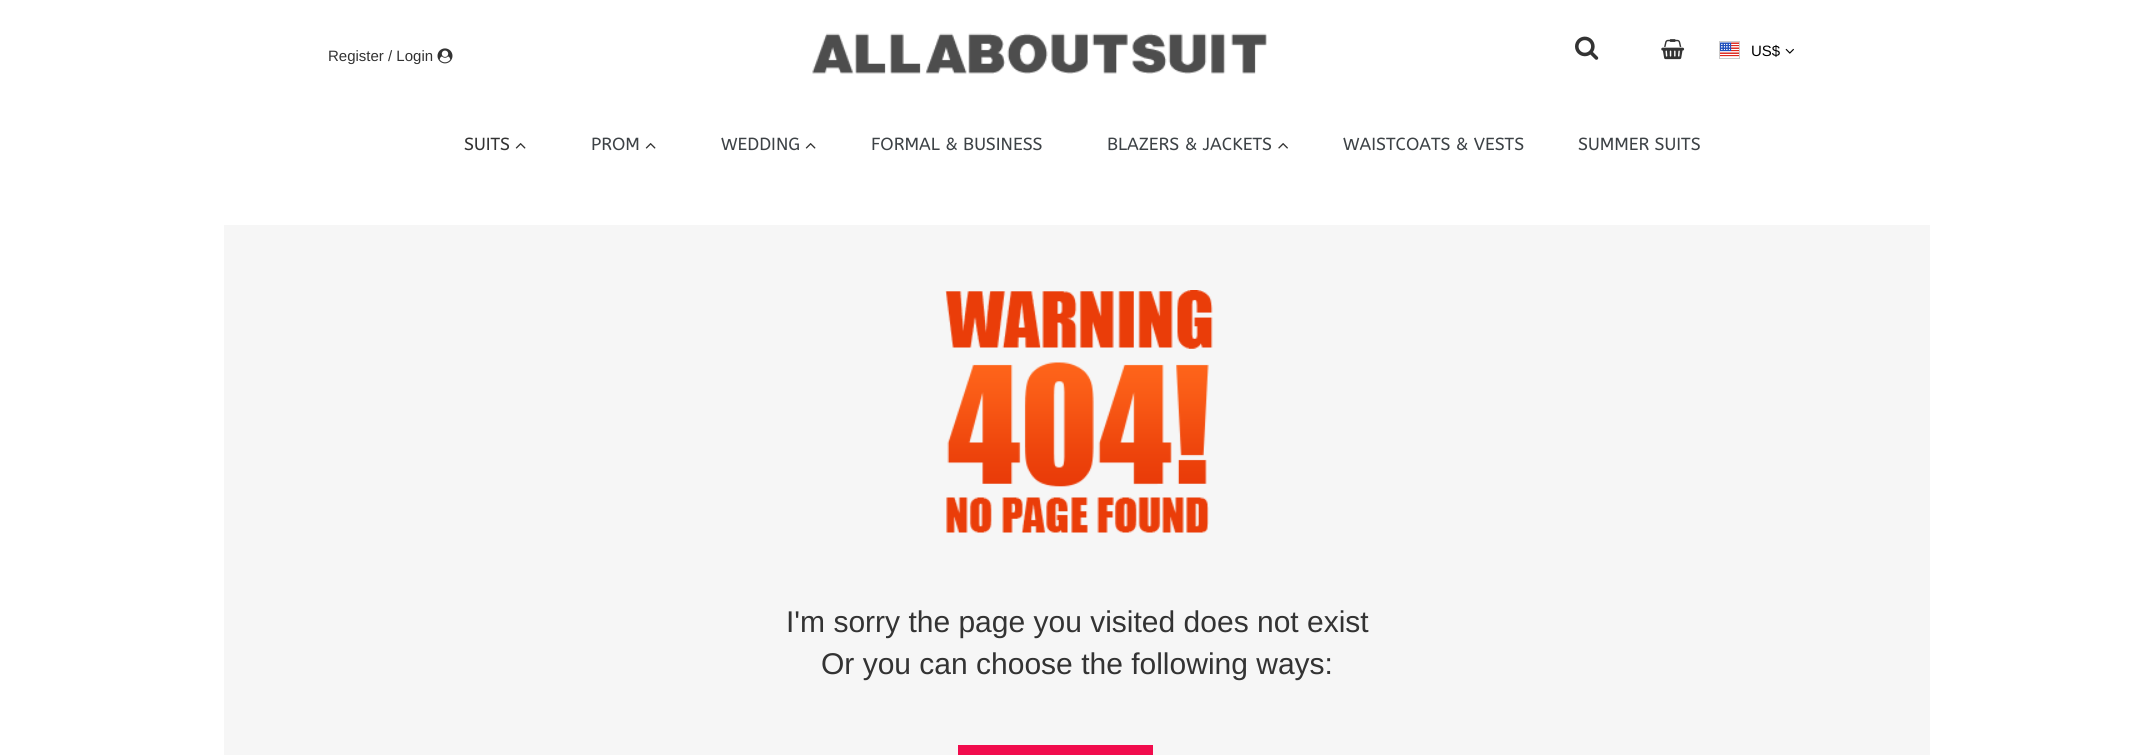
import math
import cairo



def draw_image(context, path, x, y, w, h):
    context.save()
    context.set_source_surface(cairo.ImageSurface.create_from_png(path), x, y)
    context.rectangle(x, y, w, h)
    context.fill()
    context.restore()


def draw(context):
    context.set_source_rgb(1, 1, 1)
    context.paint()
    draw_image(context, "images/1.png", 437, 48, 16, 16)
    draw_image(context, "images/2.png", 812, 33, 455, 41)
    draw_image(context, "images/3.png", 1575, 36, 24, 24)
    draw_image(context, "images/4.png", 1661, 39, 24, 21)
    draw_image(context, "images/5.png", 1720, 42, 19, 15)
    context.rectangle(1719.5, 41.5, 20, 17)
    context.set_source_rgb(204 / 255, 204 / 255, 204 / 255)
    context.set_line_width(1)
    context.stroke()
    draw_image(context, "images/6.png", 1785, 48, 9, 6)
    draw_image(context, "images/7.png", 515, 143, 11, 6)
    draw_image(context, "images/7.png", 645, 143, 11, 6)
    draw_image(context, "images/7.png", 805, 143, 11, 6)
    draw_image(context, "images/8.png", 1278, 143, 10, 6)
    context.set_source_rgb(246 / 255, 246 / 255, 246 / 255)
    context.rectangle(224, 225, 1706, 530)
    context.fill()
    draw_image(context, "images/9.png", 945, 290, 268, 243)
    context.set_source_rgb(241 / 255, 12 / 255, 77 / 255)
    context.rectangle(958, 745, 195, 10)
    context.fill()
    context.select_font_face("Liberation Sans")
    context.set_font_size(15)
    context.set_source_rgb(51 / 255, 51 / 255, 51 / 255)
    context.move_to(328, 61)
    context.show_text("Register / Login")
    context.set_source_rgb(0, 0, 0)
    context.move_to(1751, 56)
    context.show_text("US$")
    context.select_font_face("ABeeZee")
    context.set_font_size(17.5)
    context.set_source_rgb(51 / 255, 51 / 255, 51 / 255)
    context.move_to(464, 150)
    context.show_text("SUITS")
    context.set_source_rgb(61 / 255, 66 / 255, 70 / 255)
    context.move_to(591, 150)
    context.show_text("PROM")
    context.move_to(721, 150)
    context.show_text("WEDDING")
    context.move_to(871, 150)
    context.show_text("FORMAL & BUSINESS")
    context.move_to(1107, 150)
    context.show_text("BLAZERS & JACKETS")
    context.move_to(1343, 150)
    context.show_text("WAISTCOATS & VESTS")
    context.move_to(1578, 150)
    context.show_text("SUMMER SUITS")
    context.select_font_face("Liberation Sans")
    context.set_font_size(30)
    context.set_source_rgb(51 / 255, 51 / 255, 51 / 255)
    context.move_to(786, 632)
    context.show_text("I'm sorry the page you visited does not exist")
    context.move_to(821, 674)
    context.show_text("Or you can choose the following ways:")


surface = cairo.ImageSurface(cairo.Format.RGB24, 2153, 755)
context = cairo.Context(surface)
options = cairo.FontOptions()
options.set_hint_metrics(cairo.HintMetrics.OFF)
options.set_hint_style(cairo.HintStyle.NONE)
context.set_font_options(options)
context.set_miter_limit(4)
draw(context)
surface.write_to_png("out.png")
